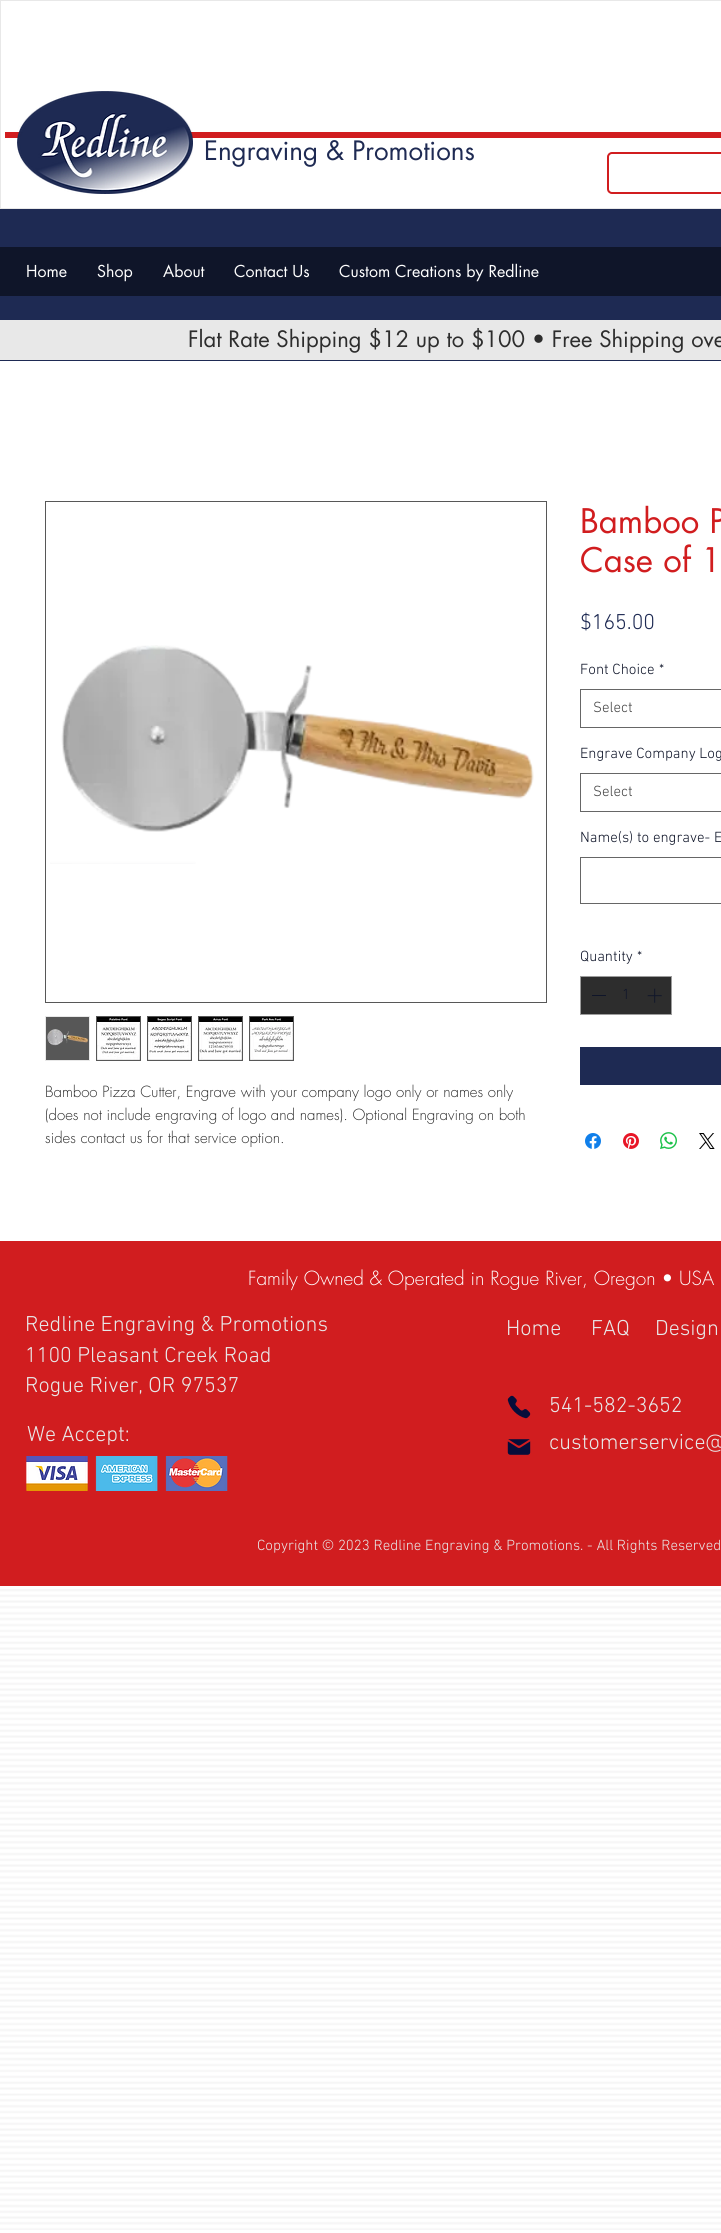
import math
import cairo



def rounded_rect(context, x, y, w, h, r):
    context.new_sub_path()
    for i, (u, v) in enumerate([(x + w - r, y + h - r), (x + r, y + h - r), (x + r, y + r), (x + w - r, y + r)]):
        context.arc(u, v, r, i * math.pi / 2, (i + 1) * math.pi / 2)
    context.close_path()


def draw_image(context, path, x, y, w, h):
    context.save()
    context.set_source_surface(cairo.ImageSurface.create_from_png(path), x, y)
    context.rectangle(x, y, w, h)
    context.fill()
    context.restore()


def draw(context):
    context.set_source_rgb(1, 1, 1)
    context.paint()
    context.rectangle(0.5, 0.5, 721, 208)
    context.set_source_rgb(232 / 255, 232 / 255, 232 / 255)
    context.set_line_width(1)
    context.stroke()
    context.set_source_rgb(209 / 255, 29 / 255, 31 / 255)
    context.rectangle(5, 132, 716, 6)
    context.fill()
    draw_image(context, "images/1.png", 17, 91, 176, 103)
    rounded_rect(context, 608, 153, 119, 40, 4)
    context.set_line_width(2)
    context.stroke()
    context.set_source_rgb(30 / 255, 42 / 255, 83 / 255)
    context.rectangle(0, 209, 721, 152)
    context.fill()
    context.set_source_rgb(15 / 255, 21 / 255, 41 / 255)
    context.rectangle(0, 247, 721, 49)
    context.fill()
    context.set_source_rgb(232 / 255, 232 / 255, 232 / 255)
    context.rectangle(0, 320, 721, 40)
    context.fill()
    context.rectangle(580.5, 689.5, 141, 38)
    context.set_source_rgb(102 / 255, 102 / 255, 102 / 255)
    context.set_line_width(1)
    context.stroke()
    context.rectangle(580.5, 773.5, 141, 38)
    context.stroke()
    context.rectangle(580.5, 857.5, 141, 46)
    context.stroke()
    context.set_source_rgb(45 / 255, 45 / 255, 45 / 255)
    context.rectangle(580.5, 976.5, 91, 38)
    context.fill_preserve()
    context.set_source_rgb(157 / 255, 157 / 255, 157 / 255)
    context.stroke()
    context.set_source_rgb(15 / 255, 21 / 255, 41 / 255)
    context.rectangle(592, 995, 14, 1)
    context.fill()
    draw_image(context, "images/2.png", 647, 988, 15, 15)
    context.set_source_rgb(30 / 255, 42 / 255, 83 / 255)
    context.rectangle(580, 1047, 141, 38)
    context.fill()
    draw_image(context, "images/3.png", 585, 1133, 16, 16)
    draw_image(context, "images/4.png", 623, 1133, 16, 16)
    draw_image(context, "images/5.png", 660, 1132, 17, 17)
    draw_image(context, "images/6.png", 699, 1133, 16, 16)
    context.rectangle(45.5, 501.5, 501, 501)
    context.set_source_rgb(87 / 255, 87 / 255, 87 / 255)
    context.stroke()
    draw_image(context, "images/7.png", 50, 645, 484, 219)
    context.rectangle(45.5, 1016.5, 44, 44)
    context.fill_preserve()
    context.set_source_rgb(232 / 255, 232 / 255, 232 / 255)
    context.stroke()
    draw_image(context, "images/8.png", 47, 1029, 41, 17)
    context.set_source_rgb(87 / 255, 87 / 255, 87 / 255)
    context.rectangle(96, 1016, 45, 45)
    context.fill()
    draw_image(context, "images/9.png", 97, 1017, 43, 43)
    context.rectangle(147, 1016, 45, 45)
    context.fill()
    draw_image(context, "images/10.png", 148, 1017, 43, 43)
    context.rectangle(198, 1016, 45, 45)
    context.fill()
    draw_image(context, "images/11.png", 199, 1017, 43, 43)
    context.rectangle(249, 1016, 45, 45)
    context.fill()
    draw_image(context, "images/12.png", 250, 1017, 43, 43)
    context.set_source_rgb(209 / 255, 29 / 255, 31 / 255)
    context.rectangle(0, 1241, 721, 345)
    context.fill()
    draw_image(context, "images/13.png", 507, 1395, 24, 24)
    draw_image(context, "images/14.png", 507, 1439, 24, 16)
    draw_image(context, "images/15.png", 26, 1456, 202, 35)
    draw_image(context, "images/16.png", 0, 1589, 721, 641)
    context.select_font_face("futura")
    context.set_font_size(26)
    context.set_source_rgb(30 / 255, 42 / 255, 83 / 255)
    context.move_to(204, 160)
    context.show_text("Engraving & Promotions")
    context.set_font_size(16)
    context.set_source_rgb(1, 1, 1)
    context.move_to(26, 277)
    context.show_text("Home")
    context.move_to(97, 277)
    context.show_text("Shop")
    context.move_to(163, 277)
    context.show_text("About")
    context.move_to(234, 277)
    context.show_text("Contact Us")
    context.move_to(339, 277)
    context.show_text("Custom Creations by Redline")
    context.set_font_size(22)
    context.set_source_rgb(45 / 255, 45 / 255, 45 / 255)
    context.move_to(188, 347)
    context.show_text("Flat Rate Shipping $12 up to $100 • Free Shipping ove")
    context.set_font_size(33)
    context.set_source_rgb(209 / 255, 29 / 255, 31 / 255)
    context.move_to(580, 533)
    context.show_text("Bamboo P")
    context.move_to(580, 572)
    context.show_text("Case of 1")
    context.select_font_face("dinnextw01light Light")
    context.set_font_size(22)
    context.set_source_rgb(30 / 255, 42 / 255, 83 / 255)
    context.move_to(580, 629)
    context.show_text("$165.00")
    context.set_font_size(15)
    context.set_source_rgb(15 / 255, 21 / 255, 41 / 255)
    context.move_to(580, 674)
    context.show_text("Font Choice")
    context.move_to(659, 674)
    context.show_text("*")
    context.set_source_rgb(68 / 255, 68 / 255, 68 / 255)
    context.move_to(593, 712)
    context.show_text("Select")
    context.set_source_rgb(15 / 255, 21 / 255, 41 / 255)
    context.move_to(580, 758)
    context.show_text("Engrave Company Log")
    context.set_source_rgb(68 / 255, 68 / 255, 68 / 255)
    context.move_to(593, 796)
    context.show_text("Select")
    context.set_source_rgb(15 / 255, 21 / 255, 41 / 255)
    context.move_to(580, 842)
    context.show_text("Name(s) to engrave- E")
    context.move_to(580, 961)
    context.show_text("Quantity")
    context.move_to(637, 961)
    context.show_text("*")
    context.move_to(622, 999)
    context.show_text("1")
    context.select_font_face("futura Light")
    context.set_source_rgb(45 / 255, 45 / 255, 45 / 255)
    context.move_to(45, 1097)
    context.show_text("Bamboo Pizza Cutter, Engrave with your company logo only or names only")
    context.move_to(45, 1120)
    context.show_text("(does not include engraving of logo and names). Optional Engraving on both")
    context.move_to(45, 1143)
    context.show_text("sides contact us for that service option.")
    context.set_font_size(19)
    context.set_source_rgb(1, 1, 1)
    context.move_to(248, 1285)
    context.show_text("Family Owned & Operated in Rogue River, Oregon • USA")
    context.select_font_face("dinnextw01light Light")
    context.set_font_size(22)
    context.set_source_rgb(232 / 255, 232 / 255, 232 / 255)
    context.move_to(25, 1331)
    context.show_text("Redline Engraving & Promotions")
    context.move_to(25, 1362)
    context.show_text("1100 Pleasant Creek Road")
    context.move_to(25, 1392)
    context.show_text("Rogue River, OR 97537")
    context.move_to(506, 1335)
    context.show_text("Home")
    context.move_to(591, 1335)
    context.show_text("FAQ")
    context.move_to(655, 1335)
    context.show_text("Design")
    context.move_to(549, 1412)
    context.show_text("541-582-3652")
    context.move_to(27, 1441)
    context.show_text("We Accept:")
    context.move_to(549, 1449)
    context.show_text("customerservice@")
    context.set_font_size(15)
    context.move_to(257, 1550)
    context.show_text("Copyright © 2023 Redline Engraving & Promotions. - All Rights Reserved")


surface = cairo.ImageSurface(cairo.Format.RGB24, 721, 2233)
context = cairo.Context(surface)
options = cairo.FontOptions()
options.set_hint_metrics(cairo.HintMetrics.OFF)
options.set_hint_style(cairo.HintStyle.NONE)
context.set_font_options(options)
context.set_miter_limit(4)
draw(context)
surface.write_to_png("out.png")
